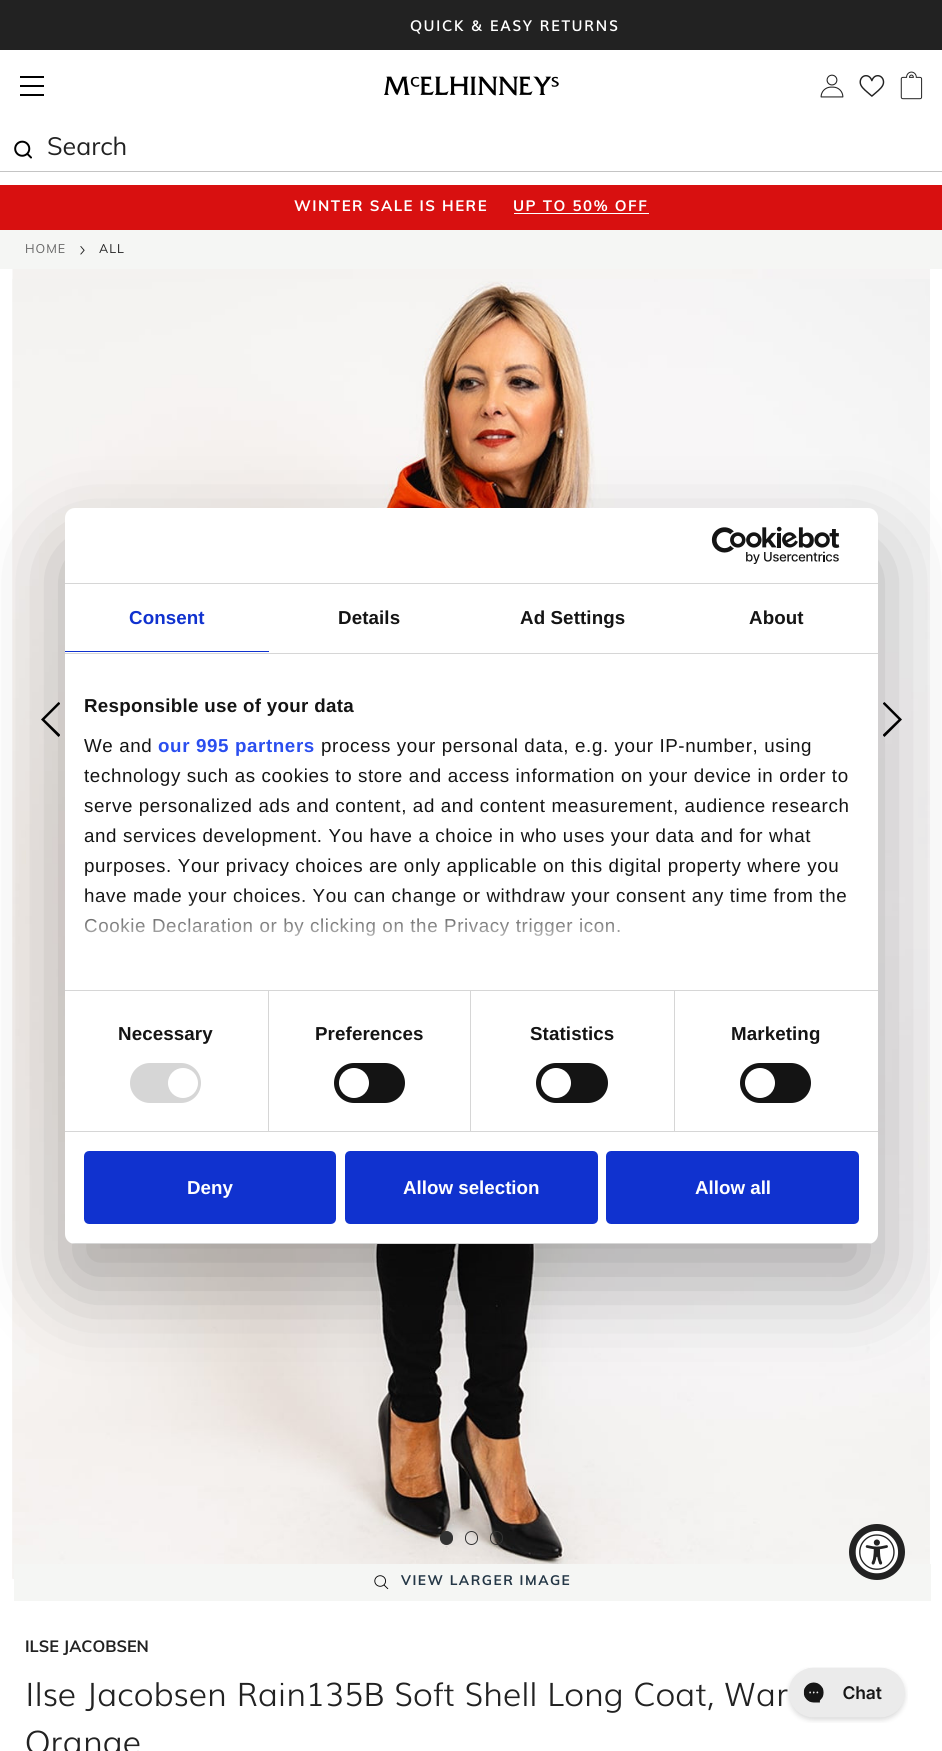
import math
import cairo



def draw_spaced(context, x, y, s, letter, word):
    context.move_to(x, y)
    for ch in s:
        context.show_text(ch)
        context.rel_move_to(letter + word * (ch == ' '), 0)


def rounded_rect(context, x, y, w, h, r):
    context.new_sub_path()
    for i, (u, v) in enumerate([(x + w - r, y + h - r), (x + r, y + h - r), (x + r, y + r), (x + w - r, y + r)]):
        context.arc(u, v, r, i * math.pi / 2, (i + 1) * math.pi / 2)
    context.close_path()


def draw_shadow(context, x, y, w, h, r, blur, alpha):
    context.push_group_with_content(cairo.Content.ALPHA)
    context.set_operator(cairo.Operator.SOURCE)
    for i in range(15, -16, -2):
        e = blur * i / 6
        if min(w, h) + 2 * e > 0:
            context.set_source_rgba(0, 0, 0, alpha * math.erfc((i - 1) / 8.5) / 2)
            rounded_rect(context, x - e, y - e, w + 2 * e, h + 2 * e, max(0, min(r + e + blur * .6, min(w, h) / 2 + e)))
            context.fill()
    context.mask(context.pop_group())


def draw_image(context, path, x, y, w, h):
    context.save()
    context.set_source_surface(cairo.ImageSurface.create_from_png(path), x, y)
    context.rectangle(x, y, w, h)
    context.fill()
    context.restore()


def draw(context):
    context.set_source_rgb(1, 1, 1)
    context.paint()
    context.set_source_rgb(34 / 255, 34 / 255, 34 / 255)
    context.rectangle(0, 0, 942, 50)
    context.fill()
    context.set_source_rgb(0, 0, 0)
    context.rectangle(20, 76, 24, 2)
    context.fill()
    context.rectangle(20, 94, 24, 2)
    context.fill()
    context.rectangle(20, 85, 24, 2)
    context.fill()
    draw_image(context, "images/1.png", 384, 76, 175, 20)
    draw_image(context, "images/2.png", 820, 74, 24, 24)
    draw_image(context, "images/3.png", 859, 75, 26, 22)
    draw_image(context, "images/4.png", 900, 71, 23, 29)
    context.set_source_rgb(196 / 255, 196 / 255, 196 / 255)
    context.rectangle(0, 171, 942, 1)
    context.fill()
    draw_image(context, "images/5.png", 14, 140, 18, 19)
    context.set_source_rgb(216 / 255, 16 / 255, 16 / 255)
    context.rectangle(0, 185, 942, 45)
    context.fill()
    context.set_source_rgb(1, 1, 1)
    context.rectangle(514, 213, 135, 1)
    context.fill()
    context.set_source_rgb(245 / 255, 246 / 255, 244 / 255)
    context.rectangle(0, 230, 942, 39)
    context.fill()
    draw_image(context, "images/6.png", 80, 246, 5, 9)
    draw_image(context, "images/7.png", 12, 269, 918, 1310)
    draw_image(context, "images/8.png", 12, 279, 918, 1300)
    context.save()
    context.rectangle(40, 701, 20, 37)
    context.clip()
    context.set_source_rgb(0, 0, 0)
    context.new_path()
    context.move_to(58.5, 737)
    context.line_to(60.5, 735)
    context.line_to(44.5, 719.5)
    context.line_to(60.5, 703.5)
    context.line_to(58.5, 702)
    context.line_to(41, 719.5)
    context.close_path()
    context.fill()
    context.restore()
    context.save()
    context.rectangle(883, 701, 20, 37)
    context.clip()
    context.set_source_rgb(0, 0, 0)
    context.new_path()
    context.move_to(884.5, 702)
    context.line_to(882.5, 703.5)
    context.line_to(898.5, 719.5)
    context.line_to(882.5, 735)
    context.line_to(884.5, 737)
    context.line_to(902, 719.5)
    context.close_path()
    context.fill()
    context.restore()
    context.set_source_rgb(50 / 255, 50 / 255, 50 / 255)
    rounded_rect(context, 440.5, 1531.5, 12, 13, 6)
    context.fill_preserve()
    context.set_line_width(1)
    context.stroke()
    rounded_rect(context, 465.5, 1531.5, 12, 13, 6)
    context.stroke()
    rounded_rect(context, 490.5, 1531.5, 12, 13, 6)
    context.stroke()
    context.set_source_rgb(245 / 255, 246 / 255, 244 / 255)
    context.rectangle(14, 1564, 917, 37)
    context.fill()
    draw_image(context, "images/9.png", 374, 1575, 15, 15)
    context.set_source_rgb(0, 0, 0)
    draw_shadow(context, 65, 548, 813, 736, 10, 42.5, 0.3)
    context.set_source_rgb(1, 1, 1)
    rounded_rect(context, 65, 508, 813, 736, 10)
    context.fill()
    context.set_source_rgb(214 / 255, 214 / 255, 214 / 255)
    context.rectangle(65, 583, 813, 1)
    context.fill()
    draw_image(context, "images/10.png", 711, 526, 129, 38)
    context.rectangle(65, 653, 813, 1)
    context.fill()
    context.set_source_rgb(16 / 255, 50 / 255, 207 / 255)
    context.rectangle(65, 651, 204, 1)
    context.fill()
    context.set_source_rgb(214 / 255, 214 / 255, 214 / 255)
    context.rectangle(65, 990, 813, 1)
    context.fill()
    context.rectangle(65, 1131, 813, 1)
    context.fill()
    context.rectangle(268, 991, 1, 140)
    context.fill()
    rounded_rect(context, 130, 1063, 71, 40, 20)
    context.fill()
    context.set_source_rgb(1, 1, 1)
    context.arc(183, 1083, 15, 0, 2 * math.pi)
    context.fill()
    context.set_source_rgb(214 / 255, 214 / 255, 214 / 255)
    context.rectangle(470, 991, 1, 140)
    context.fill()
    context.set_source_rgb(20 / 255, 20 / 255, 20 / 255)
    rounded_rect(context, 334, 1063, 71, 40, 20)
    context.fill()
    context.set_source_rgb(1, 1, 1)
    context.arc(354, 1083, 15, 0, 2 * math.pi)
    context.fill()
    context.set_source_rgb(214 / 255, 214 / 255, 214 / 255)
    context.rectangle(674, 991, 1, 140)
    context.fill()
    context.set_source_rgb(20 / 255, 20 / 255, 20 / 255)
    rounded_rect(context, 536, 1063, 72, 40, 20)
    context.fill()
    context.set_source_rgb(1, 1, 1)
    context.arc(556, 1083, 15, 0, 2 * math.pi)
    context.fill()
    context.set_source_rgb(20 / 255, 20 / 255, 20 / 255)
    rounded_rect(context, 740, 1063, 71, 40, 20)
    context.fill()
    context.set_source_rgb(1, 1, 1)
    context.arc(760, 1083, 15, 0, 2 * math.pi)
    context.fill()
    context.save()
    rounded_rect(context, 65, 508, 813, 736, 10)
    context.clip()
    context.set_source_rgb(214 / 255, 214 / 255, 214 / 255)
    context.rectangle(65, 1243, 813, 1)
    context.fill()
    context.restore()
    context.set_source_rgb(16 / 255, 50 / 255, 207 / 255)
    rounded_rect(context, 85.5, 1152.5, 249, 70, 3.5)
    context.fill_preserve()
    context.set_line_width(3)
    context.stroke()
    rounded_rect(context, 346.5, 1152.5, 250, 70, 3.5)
    context.fill_preserve()
    context.stroke()
    rounded_rect(context, 607.5, 1152.5, 250, 70, 3.5)
    context.fill_preserve()
    context.stroke()
    context.set_source_rgb(34 / 255, 34 / 255, 34 / 255)
    context.arc(877, 1552, 28, 0, 2 * math.pi)
    context.fill()
    draw_image(context, "images/11.png", 855, 1530, 44, 44)
    context.select_font_face("Muli SemiBold")
    context.set_font_size(15)
    context.set_source_rgb(1, 1, 1)
    draw_spaced(context, 410, 31, "QUICK & EASY RETURNS", 1.5, 0)
    context.select_font_face("Muli")
    context.set_font_size(25)
    context.set_source_rgb(34 / 255, 34 / 255, 34 / 255)
    context.move_to(47, 155)
    context.show_text("Search")
    context.select_font_face("Muli", cairo.FontSlant.NORMAL, cairo.FontWeight.BOLD)
    context.set_font_size(15)
    context.set_source_rgb(1, 1, 1)
    draw_spaced(context, 294, 211, "WINTER SALE IS HERE", 1.5, 0)
    draw_spaced(context, 513, 211, "UP TO 50% OFF", 1.5, 0)
    context.select_font_face("Muli")
    context.set_font_size(12.5)
    context.set_source_rgb(102 / 255, 102 / 255, 102 / 255)
    draw_spaced(context, 25, 253, "HOME", 1, 0)
    context.set_source_rgb(34 / 255, 34 / 255, 34 / 255)
    draw_spaced(context, 99, 253, "ALL", 1, 0)
    context.select_font_face("Muli", cairo.FontSlant.NORMAL, cairo.FontWeight.BOLD)
    context.set_font_size(13.75)
    context.set_source_rgb(36 / 255, 55 / 255, 70 / 255)
    draw_spaced(context, 401, 1585, "VIEW LARGER IMAGE", 1.5, 0)
    context.set_font_size(16.25)
    context.set_source_rgb(34 / 255, 34 / 255, 34 / 255)
    context.move_to(25, 1652)
    context.show_text("ILSE JACOBSEN")
    context.select_font_face("Muli Light")
    context.set_font_size(32.5)
    context.move_to(25, 1706)
    context.show_text("Ilse Jacobsen Rain135B Soft Shell Long Coat, War")
    context.move_to(25, 1754)
    context.show_text("Orange")
    context.select_font_face("Liberation Sans", cairo.FontSlant.NORMAL, cairo.FontWeight.BOLD)
    context.set_font_size(18.75)
    context.set_source_rgb(16 / 255, 50 / 255, 207 / 255)
    draw_spaced(context, 129, 624, "Consent", 0.1, 0)
    context.set_source_rgb(20 / 255, 20 / 255, 20 / 255)
    draw_spaced(context, 338, 624, "Details", 0.1, 0)
    draw_spaced(context, 520, 624, "Ad Settings", 0.1, 0)
    draw_spaced(context, 749, 624, "About", 0.1, 0)
    draw_spaced(context, 84, 712, "Responsible use of your data", 0.3, 0)
    context.select_font_face("Liberation Sans")
    draw_spaced(context, 84, 752, "We and", 0.62, 0)
    context.select_font_face("Liberation Sans", cairo.FontSlant.NORMAL, cairo.FontWeight.BOLD)
    context.set_source_rgb(42 / 255, 78 / 255, 239 / 255)
    draw_spaced(context, 158, 752, "our 995 partners", 0.62, 0)
    context.select_font_face("Liberation Sans")
    context.set_source_rgb(20 / 255, 20 / 255, 20 / 255)
    draw_spaced(context, 321, 752, "process your personal data, e.g. your IP-number, using", 0.62, 0)
    draw_spaced(context, 84, 782, "technology such as cookies to store and access information on your device in order to", 0.62, 0)
    draw_spaced(context, 84, 812, "serve personalized ads and content, ad and content measurement, audience research", 0.62, 0)
    draw_spaced(context, 84, 842, "and services development. You have a choice in who uses your data and for what", 0.62, 0)
    draw_spaced(context, 84, 872, "purposes. Your privacy choices are only applicable on this digital property where you", 0.62, 0)
    draw_spaced(context, 84, 902, "have made your choices. You can change or withdraw your consent any time from the", 0.62, 0)
    draw_spaced(context, 84, 932, "Cookie Declaration or by clicking on the Privacy trigger icon.", 0.62, 0)
    gradient = cairo.LinearGradient(463, 990, 463, 897)
    gradient.add_color_stop_rgba(0, 1, 1, 1, 1)
    gradient.add_color_stop_rgba(0.5, 1, 1, 1, 0.8)
    gradient.add_color_stop_rgba(1, 1, 1, 1, 0)
    context.set_source(gradient)
    context.rectangle(84, 898, 761, 38)
    context.fill()
    context.select_font_face("Liberation Sans", cairo.FontSlant.NORMAL, cairo.FontWeight.BOLD)
    context.set_source_rgb(20 / 255, 20 / 255, 20 / 255)
    draw_spaced(context, 118, 1040, "Necessary", 0.1, 0)
    draw_spaced(context, 315, 1040, "Preferences", 0.1, 0)
    draw_spaced(context, 530, 1040, "Statistics", 0.1, 0)
    draw_spaced(context, 731, 1040, "Marketing", 0.1, 0)
    context.set_source_rgb(1, 1, 1)
    context.move_to(187, 1194)
    context.show_text("Deny")
    context.move_to(403, 1194)
    context.show_text("Allow selection")
    context.move_to(695, 1194)
    context.show_text("Allow all")
    draw_image(context, "images/12.png", 786, 1667, 122, 56)


surface = cairo.ImageSurface(cairo.Format.RGB24, 942, 1751)
context = cairo.Context(surface)
options = cairo.FontOptions()
options.set_hint_metrics(cairo.HintMetrics.OFF)
options.set_hint_style(cairo.HintStyle.NONE)
context.set_font_options(options)
context.set_miter_limit(4)
draw(context)
surface.write_to_png("out.png")
